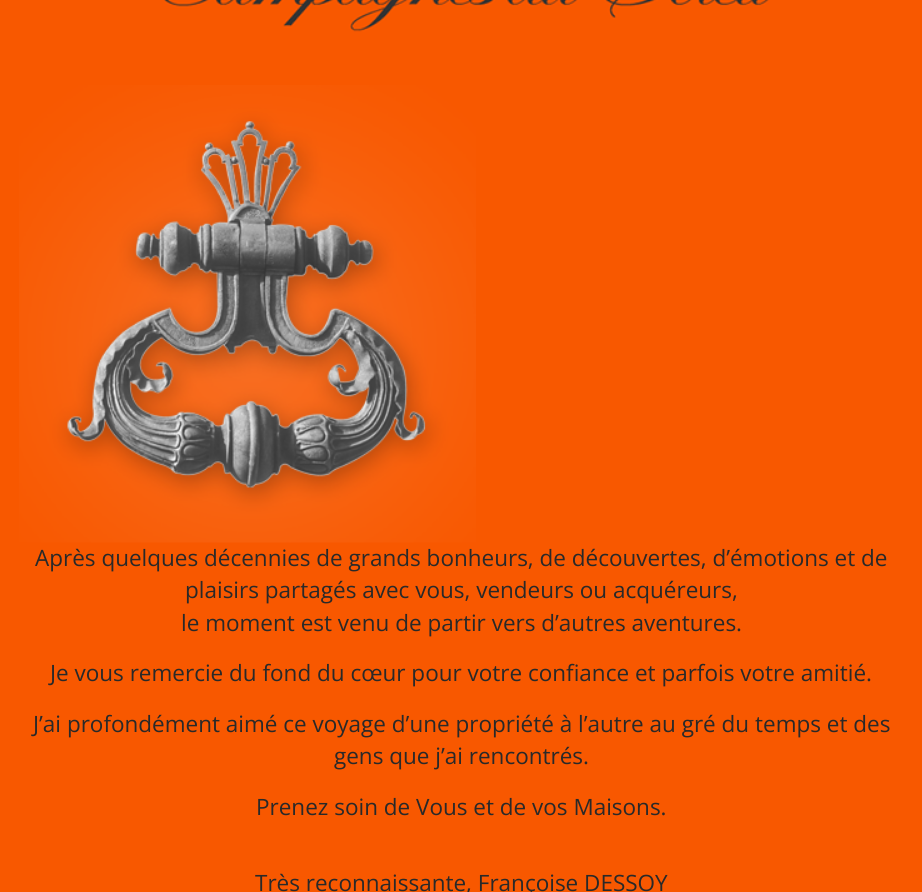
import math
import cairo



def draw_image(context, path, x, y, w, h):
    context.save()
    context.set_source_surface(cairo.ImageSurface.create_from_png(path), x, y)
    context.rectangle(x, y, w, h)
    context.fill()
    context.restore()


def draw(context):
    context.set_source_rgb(248 / 255, 88 / 255, 0)
    context.paint()
    draw_image(context, "images/1.png", 164, 0, 605, 32)
    draw_image(context, "images/2.png", 19, 85, 457, 458)
    context.select_font_face("Open Sans")
    context.set_font_size(22.5)
    context.set_source_rgb(41 / 255, 41 / 255, 41 / 255)
    context.move_to(35, 566)
    context.show_text("Après quelques décennies de grands bonheurs, de découvertes, d’émotions et de")
    context.move_to(185, 598)
    context.show_text("plaisirs partagés avec vous, vendeurs ou acquéreurs,")
    context.move_to(181, 631)
    context.show_text("le moment est venu de partir vers d’autres aventures.")
    context.move_to(50, 681)
    context.show_text("Je vous remercie du fond du cœur pour votre confiance et parfois votre amitié.")
    context.move_to(33, 732)
    context.show_text("J’ai profondément aimé ce voyage d’une propriété à l’autre au gré du temps et des")
    context.move_to(334, 764)
    context.show_text("gens que j’ai rencontrés.")
    context.move_to(256, 815)
    context.show_text("Prenez soin de Vous et de vos Maisons.")
    context.move_to(255, 891)
    context.show_text("Très reconnaissante, Françoise DESSOY")


surface = cairo.ImageSurface(cairo.Format.RGB24, 922, 892)
context = cairo.Context(surface)
options = cairo.FontOptions()
options.set_hint_metrics(cairo.HintMetrics.OFF)
options.set_hint_style(cairo.HintStyle.NONE)
context.set_font_options(options)
context.set_miter_limit(4)
draw(context)
surface.write_to_png("out.png")
